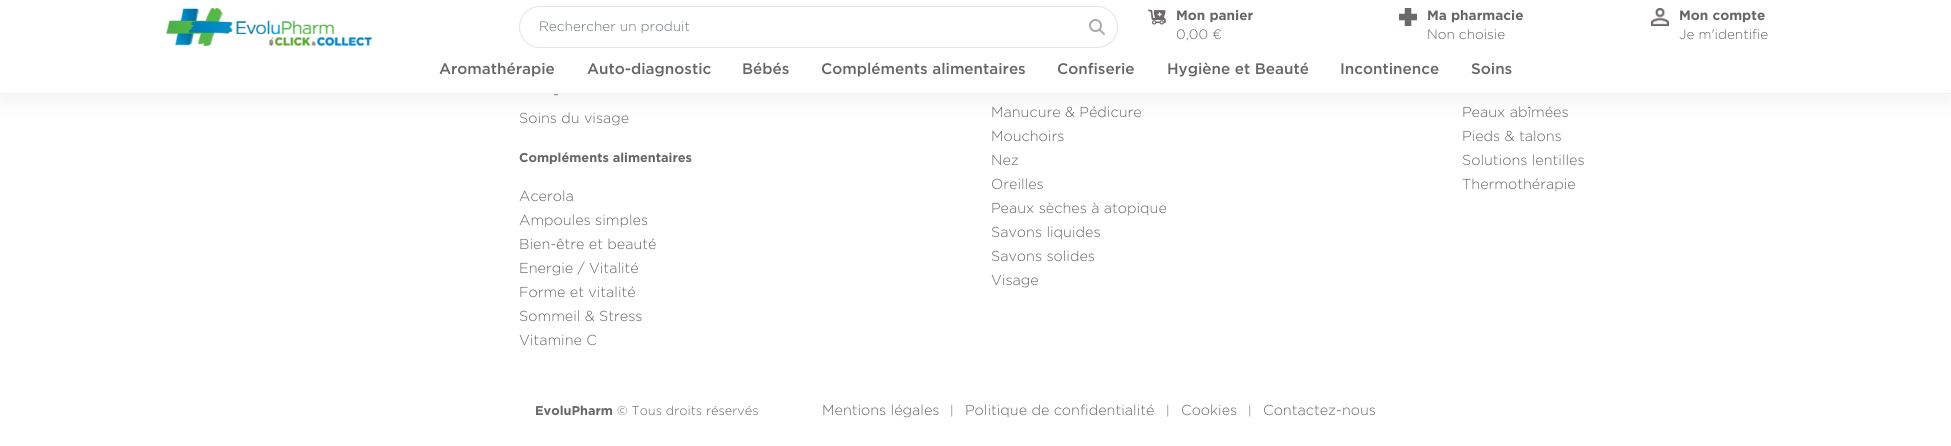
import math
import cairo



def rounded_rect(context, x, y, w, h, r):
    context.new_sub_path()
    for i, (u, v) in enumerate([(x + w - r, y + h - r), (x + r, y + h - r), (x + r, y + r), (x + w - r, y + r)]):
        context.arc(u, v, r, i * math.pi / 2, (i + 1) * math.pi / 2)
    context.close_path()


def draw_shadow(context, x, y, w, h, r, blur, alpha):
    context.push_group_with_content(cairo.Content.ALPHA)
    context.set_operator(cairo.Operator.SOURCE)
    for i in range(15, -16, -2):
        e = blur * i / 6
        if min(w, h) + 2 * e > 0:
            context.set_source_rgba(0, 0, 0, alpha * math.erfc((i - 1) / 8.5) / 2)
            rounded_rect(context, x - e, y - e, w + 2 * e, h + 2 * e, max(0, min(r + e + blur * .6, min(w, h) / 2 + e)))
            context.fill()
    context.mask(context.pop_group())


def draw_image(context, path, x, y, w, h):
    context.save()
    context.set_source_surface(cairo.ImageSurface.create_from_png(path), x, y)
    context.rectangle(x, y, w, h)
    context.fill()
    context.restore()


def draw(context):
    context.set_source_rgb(1, 1, 1)
    context.paint()
    context.set_source_rgb(241 / 255, 241 / 255, 241 / 255)
    draw_shadow(context, 0, 5, 1951, 94, 0, 10, 1)
    context.set_source_rgb(1, 1, 1)
    context.rectangle(0, 0, 1951, 93)
    context.fill()
    context.set_source_rgb(241 / 255, 241 / 255, 241 / 255)
    context.rectangle(0, 93, 1951, 1)
    context.fill()
    draw_image(context, "images/1.png", 166, 8, 206, 39)
    rounded_rect(context, 519.5, 6.5, 598, 41, 20.5)
    context.set_source_rgb(228 / 255, 228 / 255, 228 / 255)
    context.set_line_width(1)
    context.stroke()
    draw_image(context, "images/2.png", 1089, 19, 16, 16)
    draw_image(context, "images/3.png", 1148, 9, 18, 16)
    draw_image(context, "images/4.png", 1399, 8, 18, 18)
    draw_image(context, "images/5.png", 1651, 8, 18, 18)
    context.select_font_face("Gotham Light")
    context.set_font_size(13.6)
    context.set_source_rgb(108 / 255, 117 / 255, 125 / 255)
    context.move_to(539, 31)
    context.show_text("Rechercher un produit")
    context.select_font_face("Gotham", cairo.FontSlant.NORMAL, cairo.FontWeight.BOLD)
    context.set_source_rgb(102 / 255, 102 / 255, 102 / 255)
    context.move_to(1176, 20)
    context.show_text("Mon panier")
    context.select_font_face("Gotham Light")
    context.move_to(1176, 39)
    context.show_text("0,00 €")
    context.select_font_face("Gotham", cairo.FontSlant.NORMAL, cairo.FontWeight.BOLD)
    context.move_to(1427, 20)
    context.show_text("Ma pharmacie")
    context.select_font_face("Gotham Light")
    context.move_to(1427, 39)
    context.show_text("Non choisie")
    context.select_font_face("Gotham", cairo.FontSlant.NORMAL, cairo.FontWeight.BOLD)
    context.move_to(1679, 20)
    context.show_text("Mon compte")
    context.select_font_face("Gotham Light")
    context.move_to(1679, 39)
    context.show_text("Je m'identifie")
    context.select_font_face("Gotham Medium")
    context.set_font_size(15.25)
    context.move_to(439, 74)
    context.show_text("Aromathérapie")
    context.move_to(587, 74)
    context.show_text("Auto-diagnostic")
    context.move_to(742, 74)
    context.show_text("Bébés")
    context.move_to(821, 74)
    context.show_text("Compléments alimentaires")
    context.move_to(1057, 74)
    context.show_text("Confiserie")
    context.move_to(1167, 74)
    context.show_text("Hygiène et Beauté")
    context.move_to(1340, 74)
    context.show_text("Incontinence")
    context.move_to(1471, 74)
    context.show_text("Soins")
    context.select_font_face("Gotham Light")
    context.set_font_size(14.4)
    context.move_to(553, 99)
    context.show_text("-")
    context.move_to(519, 123)
    context.show_text("Soins du visage")
    context.select_font_face("Gotham", cairo.FontSlant.NORMAL, cairo.FontWeight.BOLD)
    context.set_font_size(12.75)
    context.move_to(519, 162)
    context.show_text("Compléments alimentaires")
    context.select_font_face("Gotham Light")
    context.set_font_size(14.4)
    context.move_to(519, 201)
    context.show_text("Acerola")
    context.move_to(519, 225)
    context.show_text("Ampoules simples")
    context.move_to(519, 249)
    context.show_text("Bien-être et beauté")
    context.move_to(519, 273)
    context.show_text("Energie / Vitalité")
    context.move_to(519, 297)
    context.show_text("Forme et vitalité")
    context.move_to(519, 321)
    context.show_text("Sommeil & Stress")
    context.move_to(519, 345)
    context.show_text("Vitamine C")
    context.move_to(991, 117)
    context.show_text("Manucure & Pédicure")
    context.move_to(991, 141)
    context.show_text("Mouchoirs")
    context.move_to(991, 165)
    context.show_text("Nez")
    context.move_to(991, 189)
    context.show_text("Oreilles")
    context.move_to(991, 213)
    context.show_text("Peaux sèches à atopique")
    context.move_to(991, 237)
    context.show_text("Savons liquides")
    context.move_to(991, 261)
    context.show_text("Savons solides")
    context.move_to(991, 285)
    context.show_text("Visage")
    context.move_to(1462, 117)
    context.show_text("Peaux abîmées")
    context.move_to(1462, 141)
    context.show_text("Pieds & talons")
    context.move_to(1462, 165)
    context.show_text("Solutions lentilles")
    context.move_to(1462, 189)
    context.show_text("Thermothérapie")
    context.select_font_face("Gotham", cairo.FontSlant.NORMAL, cairo.FontWeight.BOLD)
    context.set_font_size(12.75)
    context.move_to(535, 415)
    context.show_text("EvoluPharm")
    context.select_font_face("Gotham Light")
    context.move_to(617, 415)
    context.show_text("© Tous droits réservés")
    context.set_font_size(14.4)
    context.move_to(822, 415)
    context.show_text("Mentions légales")
    context.set_font_size(12.75)
    context.move_to(950, 415)
    context.show_text("|")
    context.set_font_size(14.4)
    context.move_to(965, 415)
    context.show_text("Politique de confidentialité")
    context.set_font_size(12.75)
    context.move_to(1166, 415)
    context.show_text("|")
    context.set_font_size(14.4)
    context.move_to(1181, 415)
    context.show_text("Cookies")
    context.set_font_size(12.75)
    context.move_to(1248, 415)
    context.show_text("|")
    context.set_font_size(14.4)
    context.move_to(1263, 415)
    context.show_text("Contactez-nous")


surface = cairo.ImageSurface(cairo.Format.RGB24, 1951, 446)
context = cairo.Context(surface)
options = cairo.FontOptions()
options.set_hint_metrics(cairo.HintMetrics.OFF)
options.set_hint_style(cairo.HintStyle.NONE)
context.set_font_options(options)
context.set_miter_limit(4)
draw(context)
surface.write_to_png("out.png")
